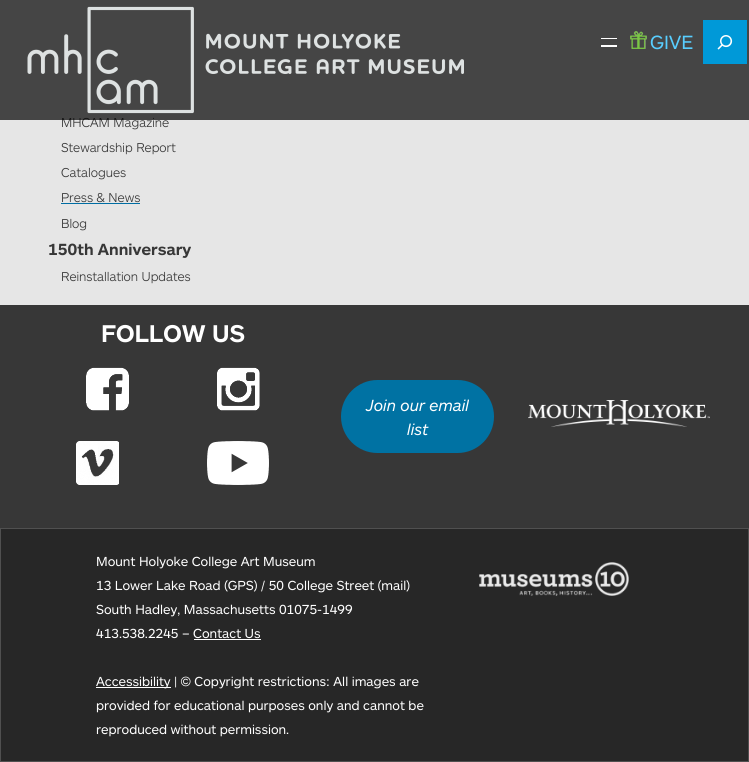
import math
import cairo



def rounded_rect(context, x, y, w, h, r):
    context.new_sub_path()
    for i, (u, v) in enumerate([(x + w - r, y + h - r), (x + r, y + h - r), (x + r, y + r), (x + w - r, y + r)]):
        context.arc(u, v, r, i * math.pi / 2, (i + 1) * math.pi / 2)
    context.close_path()


def draw_image(context, path, x, y, w, h):
    context.save()
    context.set_source_surface(cairo.ImageSurface.create_from_png(path), x, y)
    context.rectangle(x, y, w, h)
    context.fill()
    context.restore()


def draw(context):
    context.set_source_rgb(230 / 255, 230 / 255, 230 / 255)
    context.paint()
    context.set_source_rgb(0, 109 / 255, 163 / 255)
    context.rectangle(61, 203, 79, 1)
    context.fill()
    context.set_source_rgb(55 / 255, 55 / 255, 55 / 255)
    context.rectangle(0, 305, 749, 223)
    context.fill()
    draw_image(context, "images/4.png", 86, 367, 43, 44)
    draw_image(context, "images/5.png", 217, 367, 43, 44)
    draw_image(context, "images/6.png", 76, 441, 43, 44)
    draw_image(context, "images/7.png", 207, 441, 62, 44)
    context.set_source_rgb(0, 114 / 255, 163 / 255)
    rounded_rect(context, 341, 380, 153, 73, 36.5)
    context.fill()
    draw_image(context, "images/8.png", 528, 400, 182, 27)
    context.set_source_rgb(39 / 255, 39 / 255, 39 / 255)
    context.rectangle(0.5, 528.5, 748, 233)
    context.fill_preserve()
    context.set_source_rgb(80 / 255, 80 / 255, 80 / 255)
    context.set_line_width(1)
    context.stroke()
    context.set_source_rgb(1, 1, 1)
    context.rectangle(194, 639, 67, 1)
    context.fill()
    context.rectangle(96, 687, 75, 1)
    context.fill()
    draw_image(context, "images/9.png", 479, 562, 150, 34)
    context.select_font_face("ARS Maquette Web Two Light")
    context.set_font_size(12.75)
    context.set_source_rgb(55 / 255, 55 / 255, 55 / 255)
    context.move_to(61, 127)
    context.show_text("MHCAM Magazine")
    context.set_source_rgba(0, 0, 0, 0.7)
    context.rectangle(0, 0, 749, 120)
    context.fill()
    context.set_source_rgb(1, 1, 1)
    context.rectangle(601, 45, 16, 2)
    context.fill()
    context.rectangle(601, 38, 16, 1)
    context.fill()
    context.set_source_rgb(0, 153 / 255, 216 / 255)
    context.rectangle(703, 20, 44, 44)
    context.fill()
    draw_image(context, "images/3.png", 717, 35, 16, 15)
    context.select_font_face("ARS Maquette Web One")
    context.set_font_size(19)
    context.set_source_rgb(88 / 255, 206 / 255, 1)
    context.move_to(650, 49)
    context.show_text("GIVE")
    draw_image(context, "images/2.png", 630, 31, 17, 18)
    draw_image(context, "images/1.png", 27, 6, 437, 108)
    context.select_font_face("ARS Maquette Web Two Light")
    context.set_font_size(12.75)
    context.set_source_rgb(55 / 255, 55 / 255, 55 / 255)
    context.move_to(61, 152)
    context.show_text("Stewardship Report")
    context.move_to(61, 177)
    context.show_text("Catalogues")
    context.move_to(61, 202)
    context.show_text("Press & News")
    context.move_to(61, 228)
    context.show_text("Blog")
    context.select_font_face("ARS Maquette Web One", cairo.FontSlant.NORMAL, cairo.FontWeight.BOLD)
    context.set_font_size(16)
    context.move_to(48, 255)
    context.show_text("150th Anniversary")
    context.select_font_face("ARS Maquette Web Two Light")
    context.set_font_size(12.75)
    context.move_to(61, 281)
    context.show_text("Reinstallation Updates")
    context.select_font_face("ARS Maquette Web One", cairo.FontSlant.NORMAL, cairo.FontWeight.BOLD)
    context.set_font_size(24)
    context.set_source_rgb(1, 1, 1)
    context.move_to(101, 342)
    context.show_text("FOLLOW US")
    context.select_font_face("ARS Maquette Web One", cairo.FontSlant.ITALIC)
    context.set_font_size(16)
    context.move_to(366, 411)
    context.show_text("Join our email")
    context.move_to(407, 435)
    context.show_text("list")
    context.select_font_face("ARS Maquette Web One")
    context.set_font_size(13)
    context.move_to(96, 566)
    context.show_text("Mount Holyoke College Art Museum")
    context.move_to(96, 590)
    context.show_text("13 Lower Lake Road (GPS) / 50 College Street (mail)")
    context.move_to(96, 614)
    context.show_text("South Hadley, Massachusetts 01075-1499")
    context.move_to(96, 638)
    context.show_text("413.538.2245 – Contact Us")
    context.move_to(96, 686)
    context.show_text("Accessibility | © Copyright restrictions: All images are")
    context.move_to(96, 710)
    context.show_text("provided for educational purposes only and cannot be")
    context.move_to(96, 734)
    context.show_text("reproduced without permission.")


surface = cairo.ImageSurface(cairo.Format.RGB24, 749, 762)
context = cairo.Context(surface)
options = cairo.FontOptions()
options.set_hint_metrics(cairo.HintMetrics.OFF)
options.set_hint_style(cairo.HintStyle.NONE)
context.set_font_options(options)
context.set_miter_limit(4)
draw(context)
surface.write_to_png("out.png")
